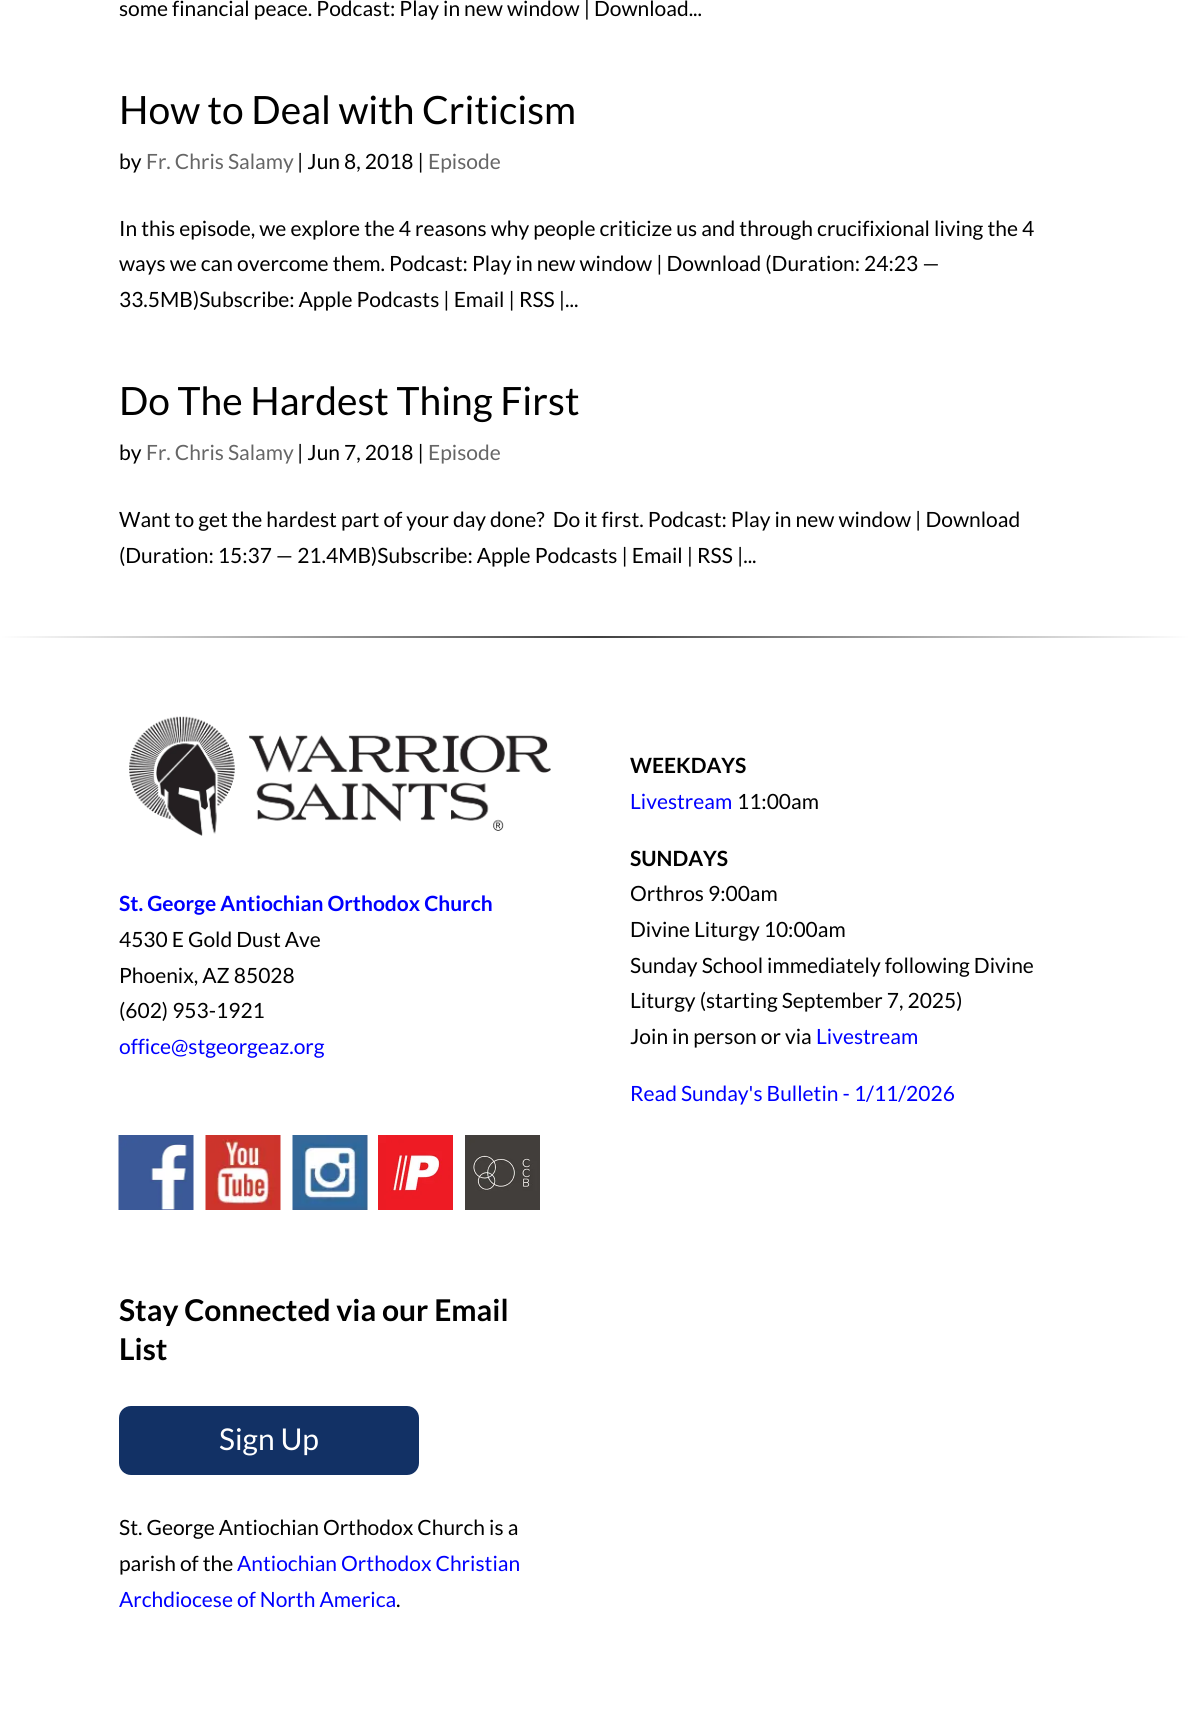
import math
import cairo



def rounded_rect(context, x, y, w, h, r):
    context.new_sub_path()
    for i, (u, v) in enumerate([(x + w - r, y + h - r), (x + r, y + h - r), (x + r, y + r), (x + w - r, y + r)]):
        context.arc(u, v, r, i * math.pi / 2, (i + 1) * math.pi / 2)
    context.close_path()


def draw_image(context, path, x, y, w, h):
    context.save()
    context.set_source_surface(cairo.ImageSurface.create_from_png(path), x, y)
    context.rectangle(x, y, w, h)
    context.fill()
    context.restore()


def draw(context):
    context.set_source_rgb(1, 1, 1)
    context.paint()
    gradient = cairo.LinearGradient(0, 637, 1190, 637)
    gradient.add_color_stop_rgba(0, 1, 1, 1, 1)
    gradient.add_color_stop_rgba(0.5, 64 / 255, 64 / 255, 64 / 255, 1)
    gradient.add_color_stop_rgba(1, 1, 1, 1, 1)
    context.set_source(gradient)
    context.rectangle(0, 636, 1189, 2)
    context.fill()
    draw_image(context, "images/1.png", 129, 716, 422, 120)
    draw_image(context, "images/2.png", 118, 1135, 76, 75)
    draw_image(context, "images/3.png", 205, 1135, 76, 75)
    draw_image(context, "images/4.png", 292, 1135, 76, 75)
    draw_image(context, "images/5.png", 378, 1135, 75, 75)
    draw_image(context, "images/6.png", 465, 1135, 75, 75)
    context.set_source_rgb(18 / 255, 49 / 255, 101 / 255)
    rounded_rect(context, 119, 1406, 300, 69, 12)
    context.fill()
    context.select_font_face("Lato")
    context.set_font_size(21)
    context.set_source_rgb(0, 0, 0)
    context.move_to(119, 16)
    context.show_text("some financial peace. Podcast: Play in new window | Download...")
    context.set_font_size(39)
    context.move_to(119, 124)
    context.show_text("How to Deal with Criticism")
    context.set_font_size(21)
    context.move_to(119, 169)
    context.show_text("by")
    context.set_source_rgb(102 / 255, 102 / 255, 102 / 255)
    context.move_to(146, 169)
    context.show_text("Fr. Chris Salamy")
    context.set_source_rgb(0, 0, 0)
    context.move_to(297, 169)
    context.show_text("| Jun 8, 2018 |")
    context.set_source_rgb(102 / 255, 102 / 255, 102 / 255)
    context.move_to(428, 169)
    context.show_text("Episode")
    context.set_source_rgb(0, 0, 0)
    context.move_to(119, 236)
    context.show_text("In this episode, we explore the 4 reasons why people criticize us and through crucifixional living the 4")
    context.move_to(119, 271)
    context.show_text("ways we can overcome them. Podcast: Play in new window | Download (Duration: 24:23 —")
    context.move_to(119, 307)
    context.show_text("33.5MB)Subscribe: Apple Podcasts | Email | RSS |...")
    context.set_font_size(39)
    context.move_to(119, 415)
    context.show_text("Do The Hardest Thing First")
    context.set_font_size(21)
    context.move_to(119, 460)
    context.show_text("by")
    context.set_source_rgb(102 / 255, 102 / 255, 102 / 255)
    context.move_to(146, 460)
    context.show_text("Fr. Chris Salamy")
    context.set_source_rgb(0, 0, 0)
    context.move_to(297, 460)
    context.show_text("| Jun 7, 2018 |")
    context.set_source_rgb(102 / 255, 102 / 255, 102 / 255)
    context.move_to(428, 460)
    context.show_text("Episode")
    context.set_source_rgb(0, 0, 0)
    context.move_to(119, 527)
    context.show_text("Want to get the hardest part of your day done?  Do it first. Podcast: Play in new window | Download")
    context.move_to(119, 563)
    context.show_text("(Duration: 15:37 — 21.4MB)Subscribe: Apple Podcasts | Email | RSS |...")
    context.select_font_face("Lato", cairo.FontSlant.NORMAL, cairo.FontWeight.BOLD)
    context.set_source_rgb(0, 0, 1)
    context.move_to(119, 911)
    context.show_text("St. George Antiochian Orthodox Church")
    context.select_font_face("Lato")
    context.set_source_rgb(0, 0, 0)
    context.move_to(119, 947)
    context.show_text("4530 E Gold Dust Ave")
    context.move_to(119, 983)
    context.show_text("Phoenix, AZ 85028")
    context.move_to(119, 1018)
    context.show_text("(602) 953-1921")
    context.set_source_rgb(0, 0, 1)
    context.move_to(119, 1054)
    context.show_text("office@stgeorgeaz.org")
    context.select_font_face("Lato", cairo.FontSlant.NORMAL, cairo.FontWeight.BOLD)
    context.set_source_rgb(0, 0, 0)
    context.move_to(630, 773)
    context.show_text("WEEKDAYS")
    context.select_font_face("Lato")
    context.set_source_rgb(0, 0, 1)
    context.move_to(630, 809)
    context.show_text("Livestream")
    context.set_source_rgb(0, 0, 0)
    context.move_to(737, 809)
    context.show_text("11:00am")
    context.select_font_face("Lato", cairo.FontSlant.NORMAL, cairo.FontWeight.BOLD)
    context.move_to(630, 866)
    context.show_text("SUNDAYS")
    context.select_font_face("Lato")
    context.move_to(630, 901)
    context.show_text("Orthros 9:00am")
    context.move_to(630, 937)
    context.show_text("Divine Liturgy 10:00am")
    context.move_to(630, 973)
    context.show_text("Sunday School immediately following Divine")
    context.move_to(630, 1008)
    context.show_text("Liturgy (starting September 7, 2025)")
    context.move_to(630, 1044)
    context.show_text("Join in person or via")
    context.set_source_rgb(0, 0, 1)
    context.move_to(816, 1044)
    context.show_text("Livestream")
    context.move_to(630, 1101)
    context.show_text("Read Sunday's Bulletin - 1/11/2026")
    context.select_font_face("Lato", cairo.FontSlant.NORMAL, cairo.FontWeight.BOLD)
    context.set_font_size(30)
    context.set_source_rgb(0, 0, 0)
    context.move_to(119, 1321)
    context.show_text("Stay Connected via our Email")
    context.move_to(119, 1360)
    context.show_text("List")
    context.select_font_face("Lato")
    context.set_source_rgb(1, 1, 1)
    context.move_to(219, 1450)
    context.show_text("Sign Up")
    context.set_font_size(21)
    context.set_source_rgb(0, 0, 0)
    context.move_to(119, 1535)
    context.show_text("St. George Antiochian Orthodox Church is a")
    context.move_to(119, 1571)
    context.show_text("parish of the")
    context.set_source_rgb(0, 0, 1)
    context.move_to(237, 1571)
    context.show_text("Antiochian Orthodox Christian")
    context.move_to(119, 1607)
    context.show_text("Archdiocese of North America")
    context.set_source_rgb(0, 0, 0)
    context.move_to(396, 1607)
    context.show_text(".")


surface = cairo.ImageSurface(cairo.Format.RGB24, 1189, 1714)
context = cairo.Context(surface)
options = cairo.FontOptions()
options.set_hint_metrics(cairo.HintMetrics.OFF)
options.set_hint_style(cairo.HintStyle.NONE)
context.set_font_options(options)
context.set_miter_limit(4)
draw(context)
surface.write_to_png("out.png")
